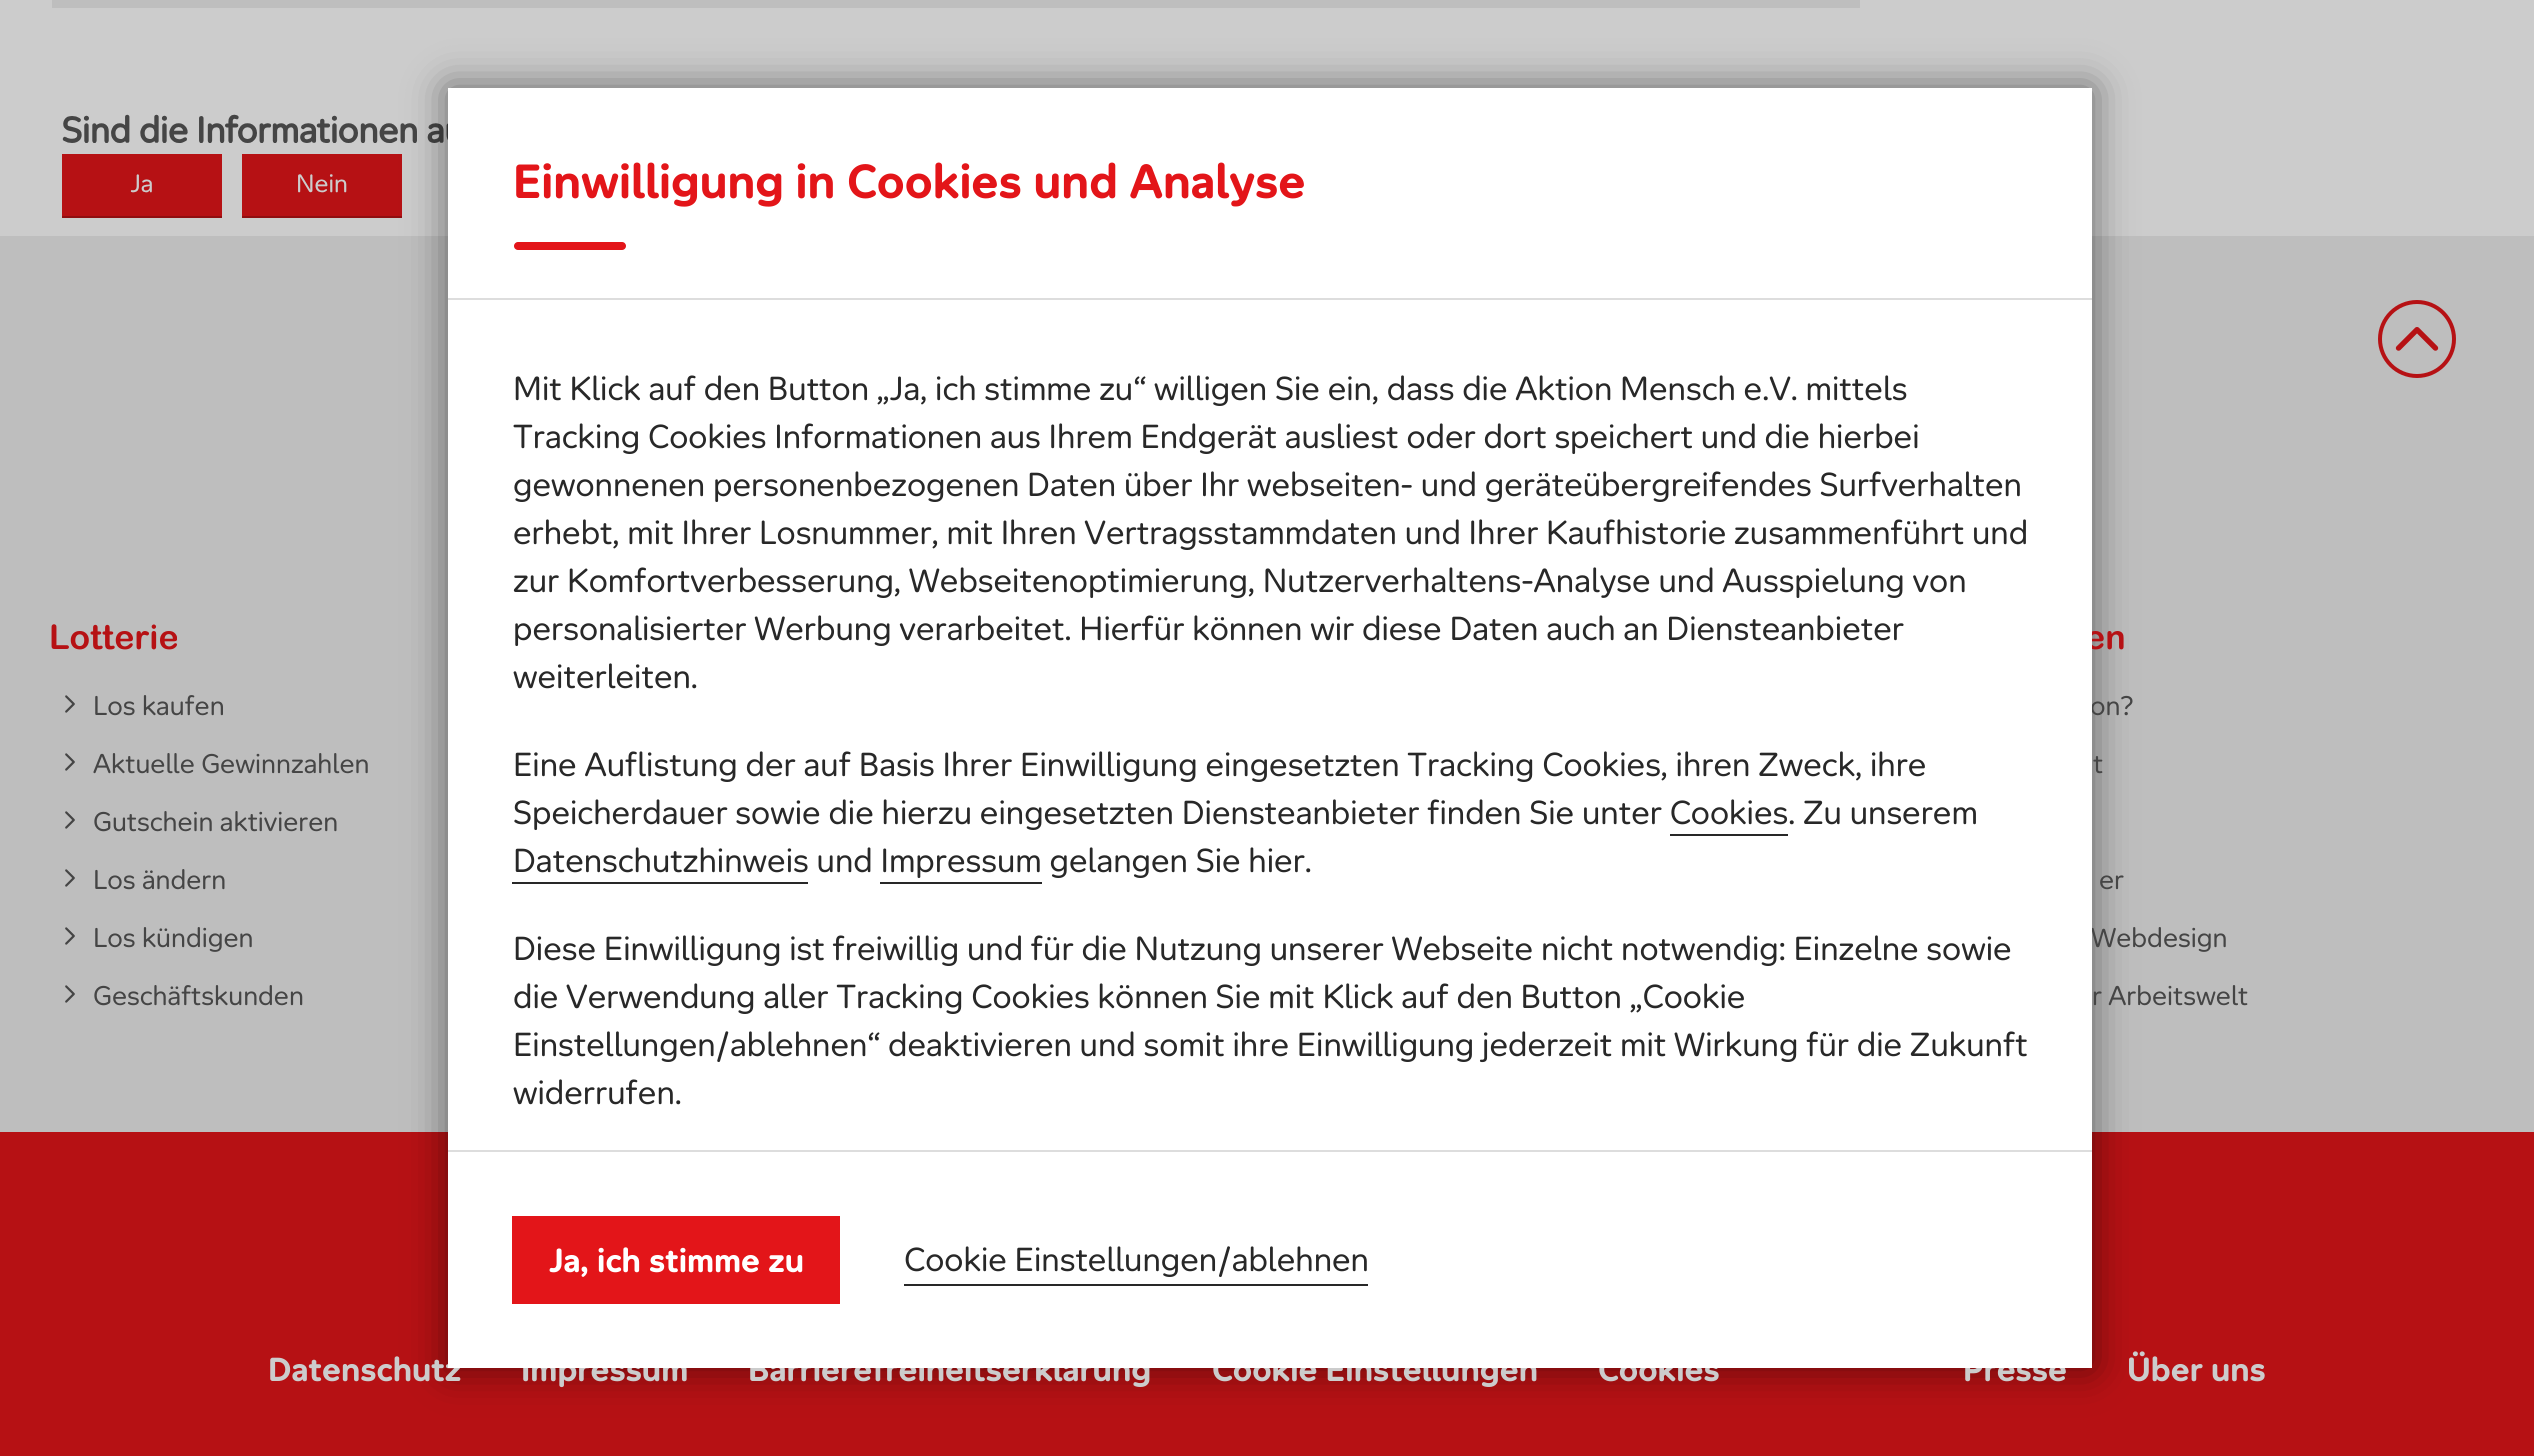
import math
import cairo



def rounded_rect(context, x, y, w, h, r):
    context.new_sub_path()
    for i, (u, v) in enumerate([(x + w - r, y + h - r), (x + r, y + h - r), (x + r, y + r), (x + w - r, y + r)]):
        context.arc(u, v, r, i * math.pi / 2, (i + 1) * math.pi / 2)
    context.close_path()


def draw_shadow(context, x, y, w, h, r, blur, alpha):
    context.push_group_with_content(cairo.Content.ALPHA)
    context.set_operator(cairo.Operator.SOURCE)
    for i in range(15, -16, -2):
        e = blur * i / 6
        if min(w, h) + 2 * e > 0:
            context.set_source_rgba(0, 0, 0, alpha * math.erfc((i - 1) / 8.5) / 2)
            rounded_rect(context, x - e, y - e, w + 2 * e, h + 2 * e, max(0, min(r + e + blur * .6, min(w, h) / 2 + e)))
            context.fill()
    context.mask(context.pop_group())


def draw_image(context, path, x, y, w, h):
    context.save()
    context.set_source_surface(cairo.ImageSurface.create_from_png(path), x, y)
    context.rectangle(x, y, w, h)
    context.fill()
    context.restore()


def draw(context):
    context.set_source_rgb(204 / 255, 204 / 255, 204 / 255)
    context.paint()
    context.set_source_rgb(190 / 255, 190 / 255, 190 / 255)
    context.rectangle(52, 0, 1808, 8)
    context.fill()
    draw_image(context, "images/1.png", 62, 114, 386, 104)
    context.rectangle(0, 236, 2534, 896)
    context.fill()
    context.set_source_rgb(182 / 255, 17 / 255, 20 / 255)
    context.rectangle(0, 1132, 2534, 324)
    context.fill()
    context.set_source_rgb(0, 0, 0)
    draw_shadow(context, 448, 88, 1644, 1280, 0, 20, 0.5)
    draw_image(context, "images/2.png", 2395, 327, 44, 24)
    context.arc(2417, 339, 37, 0, 2 * math.pi)
    context.set_source_rgb(182 / 255, 17 / 255, 20 / 255)
    context.set_line_width(4)
    context.stroke()
    draw_image(context, "images/3.png", 65, 695, 10, 18)
    draw_image(context, "images/3.png", 65, 753, 10, 18)
    draw_image(context, "images/3.png", 65, 811, 10, 18)
    draw_image(context, "images/3.png", 65, 869, 10, 18)
    draw_image(context, "images/3.png", 65, 927, 10, 18)
    draw_image(context, "images/3.png", 65, 985, 10, 18)
    context.select_font_face("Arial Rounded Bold", cairo.FontSlant.NORMAL, cairo.FontWeight.BOLD)
    context.set_font_size(34)
    context.move_to(49, 649)
    context.show_text("Lotterie")
    context.select_font_face("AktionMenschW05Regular")
    context.set_font_size(26)
    context.set_source_rgb(69 / 255, 69 / 255, 69 / 255)
    context.move_to(93, 715)
    context.show_text("Los kaufen")
    context.move_to(93, 773)
    context.show_text("Aktuelle Gewinnzahlen")
    context.move_to(93, 831)
    context.show_text("Gutschein aktivieren")
    context.move_to(93, 889)
    context.show_text("Los ändern")
    context.move_to(93, 947)
    context.show_text("Los kündigen")
    context.move_to(93, 1005)
    context.show_text("Geschäftskunden")
    context.select_font_face("Arial Rounded Bold", cairo.FontSlant.NORMAL, cairo.FontWeight.BOLD)
    context.set_font_size(34)
    context.set_source_rgb(182 / 255, 17 / 255, 20 / 255)
    context.move_to(2085, 649)
    context.show_text("en")
    context.select_font_face("AktionMenschW05Regular")
    context.set_font_size(26)
    context.set_source_rgb(69 / 255, 69 / 255, 69 / 255)
    context.move_to(2090, 715)
    context.show_text("on?")
    context.move_to(2093, 773)
    context.show_text("t")
    context.move_to(2099, 889)
    context.show_text("er")
    context.move_to(2091, 947)
    context.show_text("Webdesign")
    context.move_to(2092, 1005)
    context.show_text("r Arbeitswelt")
    context.select_font_face("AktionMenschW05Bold", cairo.FontSlant.NORMAL, cairo.FontWeight.BOLD)
    context.set_font_size(32)
    context.set_source_rgb(204 / 255, 204 / 255, 204 / 255)
    context.move_to(268, 1381)
    context.show_text("Datenschutz")
    context.move_to(521, 1381)
    context.show_text("Impressum")
    context.move_to(748, 1381)
    context.show_text("Barrierefreiheitserklärung")
    context.move_to(1212, 1381)
    context.show_text("Cookie Einstellungen")
    context.move_to(1598, 1381)
    context.show_text("Cookies")
    context.move_to(1963, 1381)
    context.show_text("Presse")
    context.set_source_rgb(1, 1, 1)
    context.rectangle(448, 88, 1644, 1280)
    context.fill()
    context.select_font_face("AktionMenschW05Regular")
    context.set_source_rgb(40 / 255, 40 / 255, 40 / 255)
    context.move_to(513, 1104)
    context.show_text("widerrufen.")
    context.move_to(513, 1056)
    context.show_text("Einstellungen/ablehnen“ deaktivieren und somit ihre Einwilligung jederzeit mit Wirkung für die Zukunft")
    context.move_to(513, 1008)
    context.show_text("die Verwendung aller Tracking Cookies können Sie mit Klick auf den Button „Cookie")
    context.move_to(513, 960)
    context.show_text("Diese Einwilligung ist freiwillig und für die Nutzung unserer Webseite nicht notwendig: Einzelne sowie")
    context.rectangle(880, 882, 162, 2)
    context.fill()
    context.move_to(513, 872)
    context.show_text("Datenschutzhinweis und Impressum gelangen Sie hier.")
    context.rectangle(512, 882, 296, 2)
    context.fill()
    context.rectangle(1670, 834, 118, 2)
    context.fill()
    context.move_to(513, 824)
    context.show_text("Speicherdauer sowie die hierzu eingesetzten Diensteanbieter finden Sie unter Cookies. Zu unserem")
    context.move_to(513, 776)
    context.show_text("Eine Auflistung der auf Basis Ihrer Einwilligung eingesetzten Tracking Cookies, ihren Zweck, ihre")
    context.move_to(513, 688)
    context.show_text("weiterleiten.")
    context.move_to(513, 640)
    context.show_text("personalisierter Werbung verarbeitet. Hierfür können wir diese Daten auch an Diensteanbieter")
    context.move_to(513, 592)
    context.show_text("zur Komfortverbesserung, Webseitenoptimierung, Nutzerverhaltens-Analyse und Ausspielung von")
    context.move_to(513, 544)
    context.show_text("erhebt, mit Ihrer Losnummer, mit Ihren Vertragsstammdaten und Ihrer Kaufhistorie zusammenführt und")
    context.move_to(513, 496)
    context.show_text("gewonnenen personenbezogenen Daten über Ihr webseiten- und geräteübergreifendes Surfverhalten")
    context.move_to(513, 448)
    context.show_text("Tracking Cookies Informationen aus Ihrem Endgerät ausliest oder dort speichert und die hierbei")
    context.move_to(513, 400)
    context.show_text("Mit Klick auf den Button „Ja, ich stimme zu“ willigen Sie ein, dass die Aktion Mensch e.V. mittels")
    context.move_to(904, 1271)
    context.show_text("Cookie Einstellungen/ablehnen")
    context.rectangle(904, 1284, 464, 2)
    context.fill()
    context.set_source_rgb(227 / 255, 21 / 255, 25 / 255)
    context.rectangle(512, 1216, 328, 88)
    context.fill()
    context.select_font_face("AktionMenschW05Bold", cairo.FontSlant.NORMAL, cairo.FontWeight.BOLD)
    context.set_source_rgb(1, 1, 1)
    context.move_to(549, 1272)
    context.show_text("Ja, ich stimme zu")
    context.set_source_rgb(221 / 255, 221 / 255, 221 / 255)
    context.rectangle(448, 1150, 1644, 2)
    context.fill()
    context.set_font_size(46)
    context.set_source_rgb(227 / 255, 21 / 255, 25 / 255)
    context.move_to(513, 198)
    context.show_text("Einwilligung in Cookies und Analyse")
    rounded_rect(context, 514, 242, 112, 8, 4)
    context.fill()
    context.set_source_rgb(221 / 255, 221 / 255, 221 / 255)
    context.rectangle(448, 298, 1644, 2)
    context.fill()
    context.set_font_size(32)
    context.set_source_rgb(204 / 255, 204 / 255, 204 / 255)
    context.move_to(2127, 1381)
    context.show_text("Über uns")


surface = cairo.ImageSurface(cairo.Format.RGB24, 2534, 1456)
context = cairo.Context(surface)
options = cairo.FontOptions()
options.set_hint_metrics(cairo.HintMetrics.OFF)
options.set_hint_style(cairo.HintStyle.NONE)
context.set_font_options(options)
context.set_miter_limit(4)
draw(context)
surface.write_to_png("out.png")
